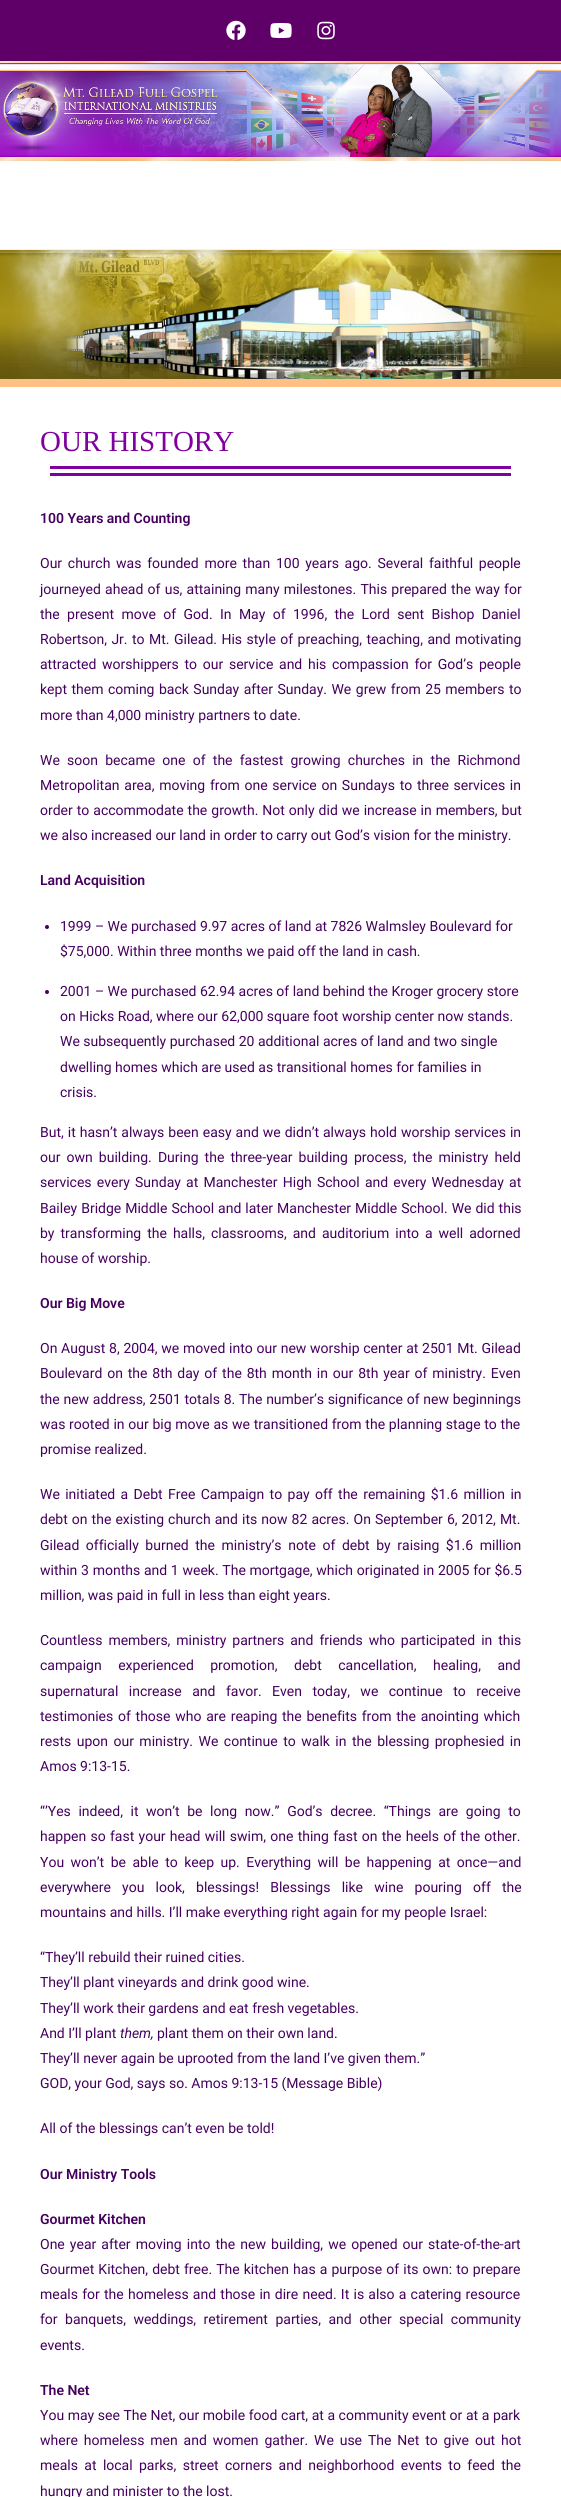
import math
import cairo



def draw_spaced(context, x, y, s, letter, word):
    context.move_to(x, y)
    for ch in s:
        context.show_text(ch)
        context.rel_move_to(letter + word * (ch == ' '), 0)


def draw_image(context, path, x, y, w, h):
    context.save()
    context.set_source_surface(cairo.ImageSurface.create_from_png(path), x, y)
    context.rectangle(x, y, w, h)
    context.fill()
    context.restore()


def draw(context):
    context.set_source_rgb(1, 1, 1)
    context.paint()
    context.set_source_rgb(241 / 255, 241 / 255, 241 / 255)
    context.rectangle(0, 249, 561, 1)
    context.fill()
    context.set_source_rgb(94 / 255, 0, 104 / 255)
    context.rectangle(0, 0, 561, 61)
    context.fill()
    draw_image(context, "images/1.png", 226, 20, 20, 20)
    draw_image(context, "images/2.png", 270, 23, 22, 15)
    draw_image(context, "images/3.png", 317, 21, 18, 19)
    draw_image(context, "images/4.png", 0, 61, 561, 100)
    draw_image(context, "images/5.png", 0, 250, 561, 129)
    context.set_source_rgb(1, 192 / 255, 134 / 255)
    context.rectangle(0, 379, 561, 8)
    context.fill()
    context.set_source_rgb(128 / 255, 0, 159 / 255)
    context.rectangle(50, 466, 461, 3)
    context.fill()
    context.rectangle(50, 473, 461, 3)
    context.fill()
    context.set_source_rgb(69 / 255, 0, 94 / 255)
    context.arc(47, 927, 2, 0, 2 * math.pi)
    context.fill()
    context.arc(47, 992, 2, 0, 2 * math.pi)
    context.fill()
    context.select_font_face("Liberation Serif")
    context.set_font_size(29)
    context.set_source_rgb(128 / 255, 0, 159 / 255)
    context.move_to(40, 451)
    context.show_text("OUR HISTORY")
    context.select_font_face("Roboto SemiBold")
    context.set_font_size(14)
    context.set_source_rgb(69 / 255, 0, 94 / 255)
    context.move_to(40, 523)
    context.show_text("100 Years and Counting")
    context.select_font_face("Roboto")
    draw_spaced(context, 40, 568, "Our church was founded more than 100 years ago. Several faithful people", 0, 2.25)
    draw_spaced(context, 40, 594, "journeyed ahead of us, attaining many milestones. This prepared the way for", 0, 0.75)
    draw_spaced(context, 40, 619, "the present move of God. In May of 1996, the Lord sent Bishop Daniel", 0, 3.9)
    draw_spaced(context, 40, 644, "Robertson, Jr. to Mt. Gilead. His style of preaching, teaching, and motivating", 0, 1)
    draw_spaced(context, 40, 669, "attracted worshippers to our service and his compassion for God’s people", 0, 2.25)
    draw_spaced(context, 40, 694, "kept them coming back Sunday after Sunday. We grew from 25 members to", 0, 1)
    context.move_to(40, 720)
    context.show_text("more than 4,000 ministry partners to date.")
    draw_spaced(context, 40, 765, "We soon became one of the fastest growing churches in the Richmond", 0, 3.75)
    draw_spaced(context, 40, 790, "Metropolitan area, moving from one service on Sundays to three services in", 0, 1.25)
    draw_spaced(context, 40, 815, "order to accommodate the growth. Not only did we increase in members, but", 0, 0.5)
    context.move_to(40, 840)
    context.show_text("we also increased our land in order to carry out God’s vision for the ministry.")
    context.select_font_face("Roboto SemiBold")
    context.move_to(40, 885)
    context.show_text("Land Acquisition")
    context.select_font_face("Roboto")
    context.move_to(60, 931)
    context.show_text("1999 – We purchased 9.97 acres of land at 7826 Walmsley Boulevard for")
    context.move_to(60, 956)
    context.show_text("$75,000. Within three months we paid off the land in cash.")
    context.move_to(60, 996)
    context.show_text("2001 – We purchased 62.94 acres of land behind the Kroger grocery store")
    context.move_to(60, 1021)
    context.show_text("on Hicks Road, where our 62,000 square foot worship center now stands.")
    context.move_to(60, 1046)
    context.show_text("We subsequently purchased 20 additional acres of land and two single")
    context.move_to(60, 1072)
    context.show_text("dwelling homes which are used as transitional homes for families in")
    context.move_to(60, 1097)
    context.show_text("crisis.")
    draw_spaced(context, 40, 1137, "But, it hasn’t always been easy and we didn’t always hold worship services in", 0, 0.5)
    draw_spaced(context, 40, 1162, "our own building. During the three-year building process, the ministry held", 0, 2.6)
    draw_spaced(context, 40, 1187, "services every Sunday at Manchester High School and every Wednesday at", 0, 1.75)
    draw_spaced(context, 40, 1213, "Bailey Bridge Middle School and later Manchester Middle School. We did this", 0, 0.5)
    draw_spaced(context, 40, 1238, "by transforming the halls, classrooms, and auditorium into a well adorned", 0, 2.5)
    context.move_to(40, 1263)
    context.show_text("house of worship.")
    context.select_font_face("Roboto SemiBold")
    context.move_to(40, 1308)
    context.show_text("Our Big Move")
    context.select_font_face("Roboto")
    draw_spaced(context, 40, 1353, "On August 8, 2004, we moved into our new worship center at 2501 Mt. Gilead", 0, 0.25)
    draw_spaced(context, 40, 1378, "Boulevard on the 8th day of the 8th month in our 8th year of ministry. Even", 0, 1.4)
    draw_spaced(context, 40, 1404, "the new address, 2501 totals 8. The number’s significance of new beginnings", 0, 0.25)
    draw_spaced(context, 40, 1429, "was rooted in our big move as we transitioned from the planning stage to the", 0, 0.25)
    context.move_to(40, 1454)
    context.show_text("promise realized.")
    draw_spaced(context, 40, 1499, "We initiated a Debt Free Campaign to pay off the remaining $1.6 million in", 0, 1.9)
    draw_spaced(context, 40, 1524, "debt on the existing church and its now 82 acres. On September 6, 2012, Mt.", 0, 0.6)
    draw_spaced(context, 40, 1550, "Gilead officially burned the ministry’s note of debt by raising $1.6 million", 0, 3.1)
    draw_spaced(context, 40, 1575, "within 3 months and 1 week. The mortgage, which originated in 2005 for $6.5", 0, 0.25)
    context.move_to(40, 1600)
    context.show_text("million, was paid in full in less than eight years.")
    draw_spaced(context, 40, 1645, "Countless members, ministry partners and friends who participated in this", 0, 2.5)
    draw_spaced(context, 40, 1670, "campaign experienced promotion, debt cancellation, healing, and", 0, 13)
    draw_spaced(context, 40, 1696, "supernatural increase and favor. Even today, we continue to receive", 0, 7)
    draw_spaced(context, 40, 1721, "testimonies of those who are reaping the benefits from the anointing which", 0, 1.25)
    draw_spaced(context, 40, 1746, "rests upon our ministry. We continue to walk in the blessing prophesied in", 0, 2)
    context.move_to(40, 1771)
    context.show_text("Amos 9:13-15.")
    draw_spaced(context, 40, 1816, "“’Yes indeed, it won’t be long now.” God’s decree. “Things are going to", 0, 4.1)
    draw_spaced(context, 40, 1841, "happen so fast your head will swim, one thing fast on the heels of the other.", 0, 0.8)
    draw_spaced(context, 40, 1867, "You won’t be able to keep up. Everything will be happening at once—and", 0, 3)
    draw_spaced(context, 40, 1892, "everywhere you look, blessings! Blessings like wine pouring off the", 0, 7.75)
    context.move_to(40, 1917)
    context.show_text("mountains and hills. I’ll make everything right again for my people Israel:")
    context.move_to(40, 1962)
    context.show_text("“They’ll rebuild their ruined cities.")
    context.move_to(40, 1987)
    context.show_text("They’ll plant vineyards and drink good wine.")
    context.move_to(40, 2013)
    context.show_text("They’ll work their gardens and eat fresh vegetables.")
    context.move_to(40, 2038)
    context.show_text("And I’ll plant")
    context.select_font_face("Roboto", cairo.FontSlant.ITALIC)
    context.move_to(120, 2038)
    context.show_text("them,")
    context.select_font_face("Roboto")
    context.move_to(157, 2038)
    context.show_text("plant them on their own land.")
    context.move_to(40, 2063)
    context.show_text("They’ll never again be uprooted from the land I’ve given them.”")
    context.move_to(40, 2088)
    context.show_text("GOD, your God, says so. Amos 9:13-15 (Message Bible)")
    context.move_to(40, 2133)
    context.show_text("All of the blessings can’t even be told!")
    context.select_font_face("Roboto SemiBold")
    context.move_to(40, 2179)
    context.show_text("Our Ministry Tools")
    context.move_to(40, 2224)
    context.show_text("Gourmet Kitchen")
    context.select_font_face("Roboto")
    draw_spaced(context, 40, 2249, "One year after moving into the new building, we opened our state-of-the-art", 0, 1.6)
    draw_spaced(context, 40, 2274, "Gourmet Kitchen, debt free. The kitchen has a purpose of its own: to prepare", 0, 0.6)
    draw_spaced(context, 40, 2299, "meals for the homeless and those in dire need. It is also a catering resource", 0, 0.75)
    draw_spaced(context, 40, 2324, "for banquets, weddings, retirement parties, and other special community", 0, 4)
    context.move_to(40, 2350)
    context.show_text("events.")
    context.select_font_face("Roboto SemiBold")
    context.move_to(40, 2395)
    context.show_text("The Net")
    context.select_font_face("Roboto")
    draw_spaced(context, 40, 2420, "You may see The Net, our mobile food cart, at a community event or at a park", 0, 0.1)
    draw_spaced(context, 40, 2445, "where homeless men and women gather. We use The Net to give out hot", 0, 2.4)
    draw_spaced(context, 40, 2470, "meals at local parks, street corners and neighborhood events to feed the", 0, 2.9)
    context.move_to(40, 2496)
    context.show_text("hungry and minister to the lost.")


surface = cairo.ImageSurface(cairo.Format.RGB24, 561, 2497)
context = cairo.Context(surface)
options = cairo.FontOptions()
options.set_hint_metrics(cairo.HintMetrics.OFF)
options.set_hint_style(cairo.HintStyle.NONE)
context.set_font_options(options)
context.set_miter_limit(4)
draw(context)
surface.write_to_png("out.png")
